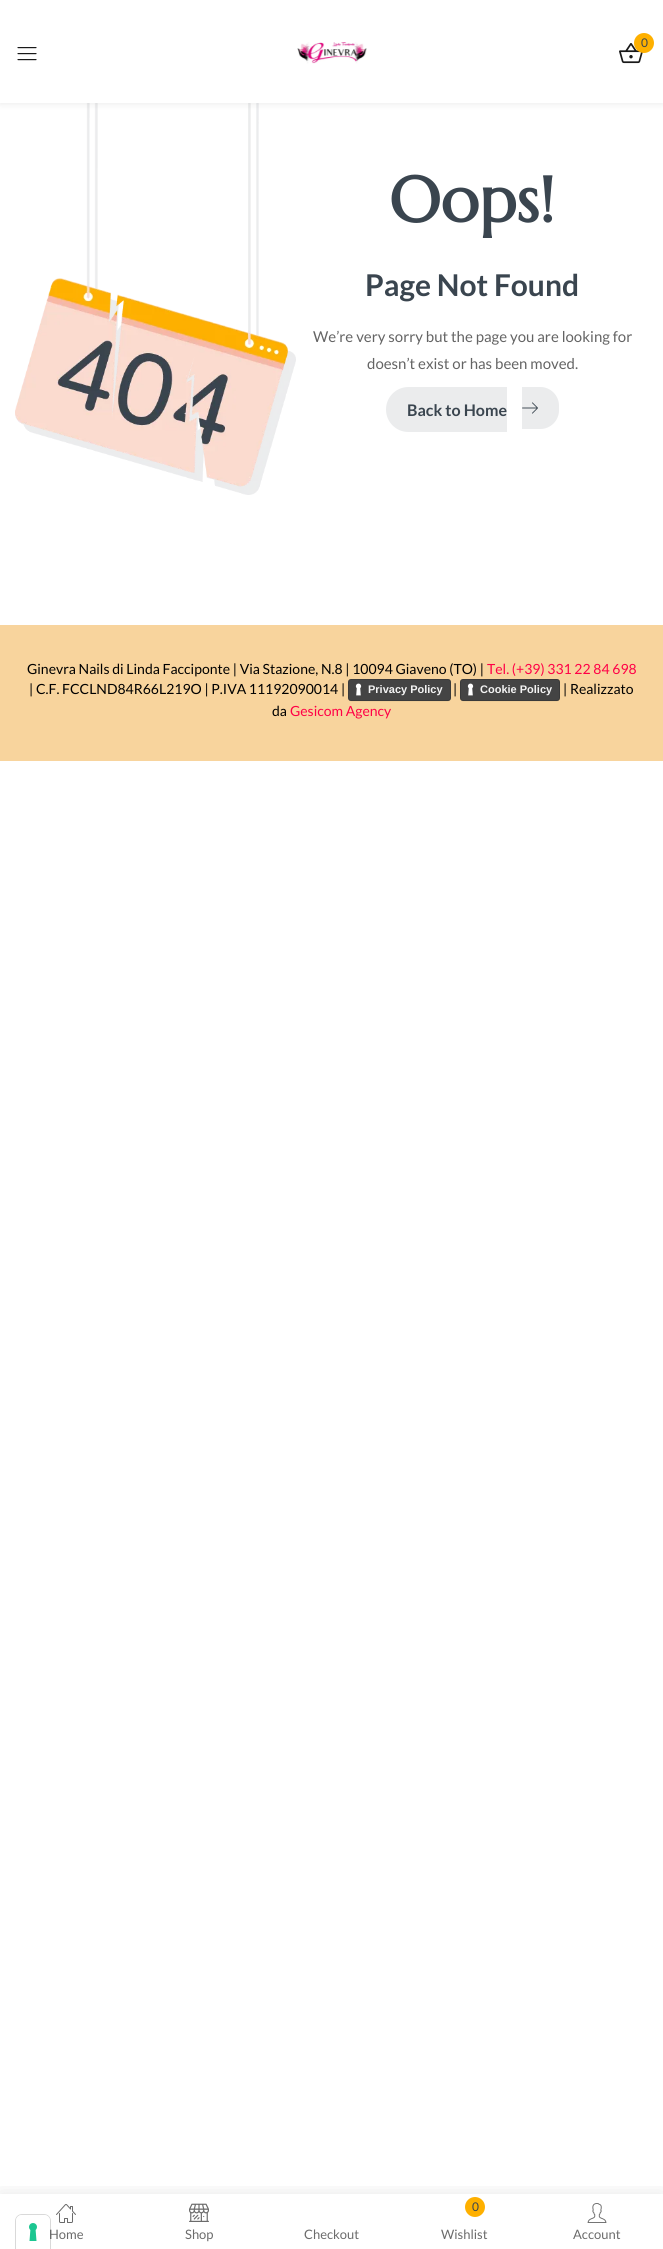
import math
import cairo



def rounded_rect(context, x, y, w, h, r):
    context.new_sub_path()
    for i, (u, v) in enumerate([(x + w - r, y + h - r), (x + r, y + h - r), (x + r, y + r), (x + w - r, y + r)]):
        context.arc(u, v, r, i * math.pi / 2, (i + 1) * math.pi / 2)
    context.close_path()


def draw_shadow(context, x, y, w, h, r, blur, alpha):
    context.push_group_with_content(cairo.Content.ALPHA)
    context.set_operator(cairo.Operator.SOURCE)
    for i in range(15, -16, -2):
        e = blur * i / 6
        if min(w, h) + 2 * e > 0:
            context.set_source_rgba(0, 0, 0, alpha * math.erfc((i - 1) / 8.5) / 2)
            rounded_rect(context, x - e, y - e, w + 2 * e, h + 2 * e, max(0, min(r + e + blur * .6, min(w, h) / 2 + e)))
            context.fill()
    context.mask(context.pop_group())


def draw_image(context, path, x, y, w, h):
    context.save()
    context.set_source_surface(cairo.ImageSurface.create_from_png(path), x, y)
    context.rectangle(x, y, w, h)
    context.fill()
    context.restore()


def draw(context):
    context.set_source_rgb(1, 1, 1)
    context.paint()
    draw_image(context, "images/4.png", 15, 103, 281, 392)
    context.set_source_rgb(0, 0, 0)
    draw_shadow(context, 0, 0, 663, 103, 0, 4, 0.1)
    context.set_source_rgb(1, 1, 1)
    context.rectangle(0, 0, 663, 103)
    context.fill()
    draw_image(context, "images/1.png", 17, 47, 20, 14)
    draw_image(context, "images/2.png", 297, 42, 70, 22)
    draw_image(context, "images/3.png", 619, 43, 24, 21)
    context.set_source_rgb(254 / 255, 176 / 255, 0)
    context.arc(644, 43, 10, 0, 2 * math.pi)
    context.fill()
    context.set_source_rgb(235 / 255, 236 / 255, 237 / 255)
    context.new_path()
    context.move_to(408.5, 387)
    context.line_to(507, 387)
    context.line_to(507, 432)
    context.line_to(408.5, 432)
    context.curve_to(396, 432, 386, 422, 386, 409.5)
    context.curve_to(386, 397, 396, 387, 408.5, 387)
    context.close_path()
    context.fill()
    context.new_path()
    context.move_to(522, 387)
    context.line_to(540.5, 387)
    context.curve_to(550.5, 387, 559, 395.5, 559, 405.5)
    context.line_to(559, 410.5)
    context.curve_to(559, 420.5, 550.5, 429, 540.5, 429)
    context.line_to(522, 429)
    context.close_path()
    context.fill()
    draw_image(context, "images/5.png", 522, 402, 16, 12)
    context.set_source_rgb(248 / 255, 212 / 255, 157 / 255)
    context.rectangle(0, 625, 663, 136)
    context.fill()
    context.set_source_rgb(0, 0, 0)
    draw_shadow(context, 349, 681, 101, 20, 2, 0.5, 0.15)
    context.set_source_rgb(68 / 255, 68 / 255, 68 / 255)
    rounded_rect(context, 348, 679, 103, 22, 3)
    context.fill()
    draw_image(context, "images/6.png", 355, 683, 7, 13)
    rounded_rect(context, 348.5, 679.5, 102, 21, 2.5)
    context.set_source_rgba(0, 0, 0, 0.15)
    context.set_line_width(1)
    context.stroke()
    context.set_source_rgb(0, 0, 0)
    draw_shadow(context, 461, 681, 98, 20, 2, 0.5, 0.15)
    context.set_source_rgb(68 / 255, 68 / 255, 68 / 255)
    rounded_rect(context, 460, 679, 100, 22, 3)
    context.fill()
    draw_image(context, "images/6.png", 467, 683, 7, 13)
    rounded_rect(context, 460.5, 679.5, 99, 21, 2.5)
    context.set_source_rgba(0, 0, 0, 0.15)
    context.stroke()
    context.save()
    context.rectangle(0, 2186, 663, 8)
    context.clip()
    context.set_source_rgb(0, 0, 0)
    draw_shadow(context, 0, 2194, 663, 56, 0, 10, 0.1)
    context.restore()
    draw_image(context, "images/7.png", 56, 2204, 20, 19)
    draw_image(context, "images/8.png", 189, 2203, 20, 19)
    context.set_source_rgb(254 / 255, 176 / 255, 0)
    context.arc(475, 2207, 10, 0, 2 * math.pi)
    context.fill()
    draw_image(context, "images/9.png", 587, 2203, 20, 20)
    context.select_font_face("Lato")
    context.set_font_size(12)
    context.set_source_rgb(58 / 255, 69 / 255, 79 / 255)
    context.move_to(641, 47)
    context.show_text("0")
    context.select_font_face("Marcellus", cairo.FontSlant.NORMAL, cairo.FontWeight.BOLD)
    context.set_font_size(64)
    context.move_to(389, 222)
    context.show_text("Oops!")
    context.select_font_face("Lato", cairo.FontSlant.NORMAL, cairo.FontWeight.BOLD)
    context.set_font_size(30)
    context.move_to(365, 296)
    context.show_text("Page Not Found")
    context.select_font_face("Lato")
    context.set_font_size(15)
    context.set_source_rgb(100 / 255, 100 / 255, 100 / 255)
    context.move_to(313, 342)
    context.show_text("We’re very sorry but the page you are looking for")
    context.move_to(367, 369)
    context.show_text("doesn’t exist or has been moved.")
    context.select_font_face("Lato", cairo.FontSlant.NORMAL, cairo.FontWeight.BOLD)
    context.set_font_size(16)
    context.set_source_rgb(58 / 255, 69 / 255, 79 / 255)
    context.move_to(407, 416)
    context.show_text("Back to Home")
    context.select_font_face("Lato")
    context.set_font_size(14)
    context.set_source_rgb(0, 0, 0)
    context.move_to(27, 674)
    context.show_text("Ginevra Nails di Linda Facciponte | Via Stazione, N.8 | 10094 Giaveno (TO) |")
    context.set_source_rgb(1, 0, 70 / 255)
    context.move_to(487, 674)
    context.show_text("Tel. (+39) 331 22 84 698")
    context.set_source_rgb(0, 0, 0)
    context.move_to(29, 694)
    context.show_text("| C.F. FCCLND84R66L219O | P.IVA 11192090014 |")
    context.select_font_face("Liberation Sans", cairo.FontSlant.NORMAL, cairo.FontWeight.BOLD)
    context.set_font_size(11)
    context.set_source_rgb(244 / 255, 244 / 255, 244 / 255)
    context.move_to(368, 693)
    context.show_text("Privacy Policy")
    context.select_font_face("Lato")
    context.set_font_size(14)
    context.set_source_rgb(0, 0, 0)
    context.move_to(453, 694)
    context.show_text("|")
    context.select_font_face("Liberation Sans", cairo.FontSlant.NORMAL, cairo.FontWeight.BOLD)
    context.set_font_size(11)
    context.set_source_rgb(244 / 255, 244 / 255, 244 / 255)
    context.move_to(480, 693)
    context.show_text("Cookie Policy")
    context.select_font_face("Lato")
    context.set_font_size(14)
    context.set_source_rgb(0, 0, 0)
    context.move_to(563, 694)
    context.show_text("| Realizzato")
    context.move_to(272, 716)
    context.show_text("da")
    context.set_source_rgb(1, 0, 70 / 255)
    context.move_to(290, 716)
    context.show_text("Gesicom Agency")
    context.set_font_size(13)
    context.set_source_rgb(107 / 255, 107 / 255, 107 / 255)
    context.move_to(49, 2239)
    context.show_text("Home")
    context.move_to(185, 2239)
    context.show_text("Shop")
    context.move_to(304, 2239)
    context.show_text("Checkout")
    context.set_font_size(12)
    context.set_source_rgb(58 / 255, 69 / 255, 79 / 255)
    context.move_to(472, 2211)
    context.show_text("0")
    context.set_font_size(13)
    context.set_source_rgb(107 / 255, 107 / 255, 107 / 255)
    context.move_to(441, 2239)
    context.show_text("Wishlist")
    context.move_to(573, 2239)
    context.show_text("Account")
    context.new_path()
    context.move_to(22, 2214.5)
    context.line_to(44, 2214.5)
    context.curve_to(47.5, 2214.5, 50.5, 2217.5, 50.5, 2221)
    context.line_to(50.5, 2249.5)
    context.line_to(15.5, 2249.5)
    context.line_to(15.5, 2221)
    context.curve_to(15.5, 2217.5, 18.5, 2214.5, 22, 2214.5)
    context.close_path()
    context.set_source_rgba(0, 0, 0, 0.15)
    context.stroke()
    context.set_source_rgb(1, 1, 1)
    context.new_path()
    context.move_to(22, 2215)
    context.line_to(44, 2215)
    context.curve_to(47.5, 2215, 50, 2217.5, 50, 2221)
    context.line_to(50, 2249)
    context.line_to(16, 2249)
    context.line_to(16, 2221)
    context.curve_to(16, 2217.5, 18.5, 2215, 22, 2215)
    context.close_path()
    context.fill()
    draw_image(context, "images/10.png", 29, 2223, 8, 18)


surface = cairo.ImageSurface(cairo.Format.RGB24, 663, 2249)
context = cairo.Context(surface)
options = cairo.FontOptions()
options.set_hint_metrics(cairo.HintMetrics.OFF)
options.set_hint_style(cairo.HintStyle.NONE)
context.set_font_options(options)
context.set_miter_limit(4)
draw(context)
surface.write_to_png("out.png")
